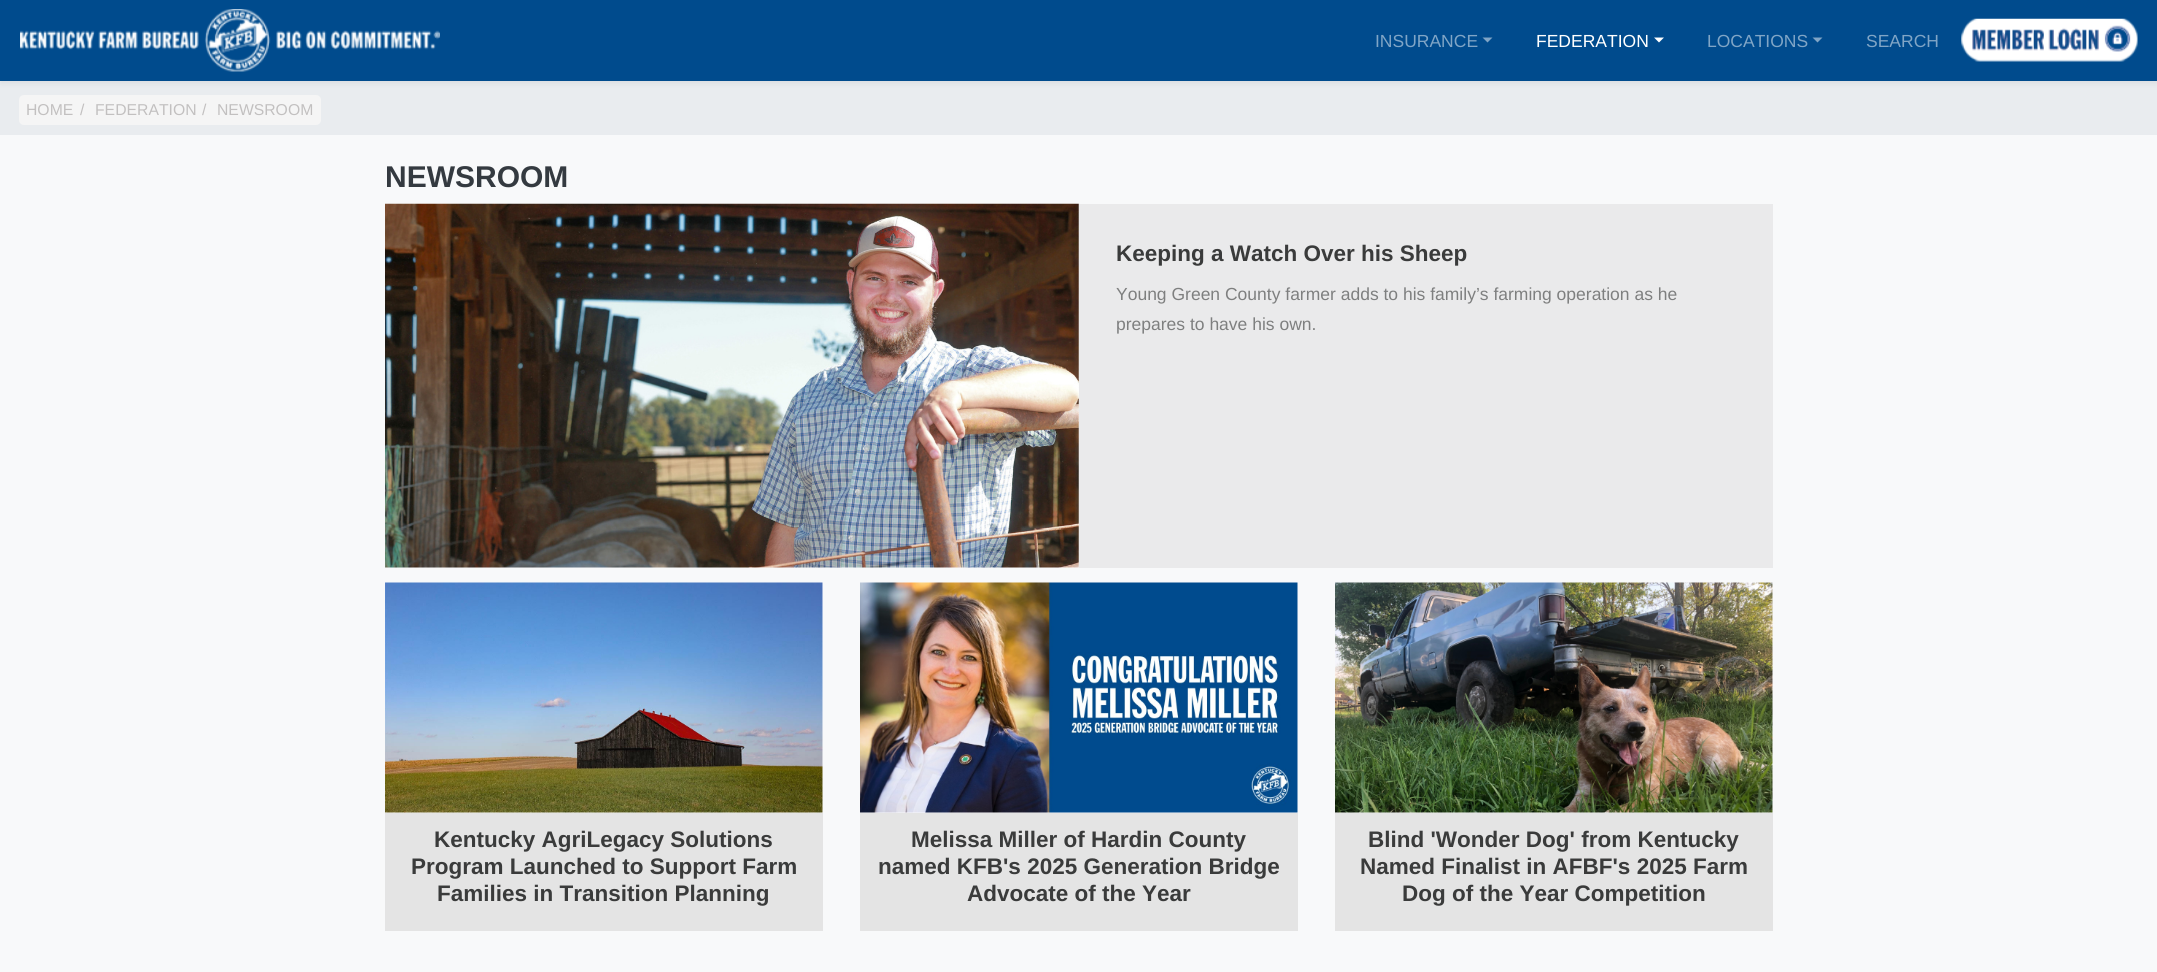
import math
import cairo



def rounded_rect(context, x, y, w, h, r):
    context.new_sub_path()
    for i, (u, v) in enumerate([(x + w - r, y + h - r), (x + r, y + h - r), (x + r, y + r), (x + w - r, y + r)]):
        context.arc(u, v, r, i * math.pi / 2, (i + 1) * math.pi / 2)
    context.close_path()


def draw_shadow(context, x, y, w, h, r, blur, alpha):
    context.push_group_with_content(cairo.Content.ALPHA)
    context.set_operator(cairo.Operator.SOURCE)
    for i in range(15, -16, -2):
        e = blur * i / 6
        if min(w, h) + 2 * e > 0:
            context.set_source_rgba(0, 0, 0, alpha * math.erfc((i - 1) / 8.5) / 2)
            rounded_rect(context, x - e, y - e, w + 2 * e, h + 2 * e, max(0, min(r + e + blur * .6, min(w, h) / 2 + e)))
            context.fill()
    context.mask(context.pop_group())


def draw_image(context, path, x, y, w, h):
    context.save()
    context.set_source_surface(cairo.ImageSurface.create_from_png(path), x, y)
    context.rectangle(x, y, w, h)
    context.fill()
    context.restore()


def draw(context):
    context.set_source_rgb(248 / 255, 249 / 255, 250 / 255)
    context.paint()
    context.set_source_rgb(233 / 255, 236 / 255, 239 / 255)
    context.rectangle(0, 81, 2157, 54)
    context.fill()
    context.set_source_rgb(52 / 255, 58 / 255, 64 / 255)
    draw_shadow(context, 0, 3, 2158, 81, 0, 2.5, 0.07)
    context.set_source_rgb(0, 75 / 255, 141 / 255)
    context.rectangle(0, 0, 2157, 81)
    context.fill()
    draw_image(context, "images/1.png", 20, 9, 420, 63)
    context.set_source_rgb(128 / 255, 165 / 255, 198 / 255)
    context.new_path()
    context.move_to(1482.5, 37.5)
    context.line_to(1492.5, 37.5)
    context.line_to(1487.5, 42.5)
    context.close_path()
    context.fill()
    context.set_source_rgb(1, 1, 1)
    context.new_path()
    context.move_to(1654, 37.5)
    context.line_to(1664, 37.5)
    context.line_to(1659, 42.5)
    context.close_path()
    context.fill()
    context.set_source_rgb(128 / 255, 165 / 255, 198 / 255)
    context.new_path()
    context.move_to(1812.5, 37.5)
    context.line_to(1822.5, 37.5)
    context.line_to(1817.5, 42.5)
    context.close_path()
    context.fill()
    draw_image(context, "images/2.png", 1961, 18, 177, 44)
    context.set_source_rgb(245 / 255, 245 / 255, 245 / 255)
    rounded_rect(context, 19, 95, 302, 30, 5)
    context.fill()
    draw_image(context, "images/3.png", 385, 203, 694, 365)
    context.set_source_rgb(234 / 255, 234 / 255, 235 / 255)
    context.rectangle(1079, 204, 694, 364)
    context.fill()
    draw_image(context, "images/4.png", 385, 582, 438, 231)
    context.set_source_rgb(228 / 255, 228 / 255, 228 / 255)
    context.rectangle(385, 813, 438, 118)
    context.fill()
    draw_image(context, "images/5.png", 860, 582, 438, 231)
    context.rectangle(860, 813, 438, 118)
    context.fill()
    draw_image(context, "images/6.png", 1335, 582, 438, 231)
    context.rectangle(1335, 813, 438, 118)
    context.fill()
    context.select_font_face("Liberation Sans")
    context.set_font_size(17.5)
    context.set_source_rgb(128 / 255, 165 / 255, 198 / 255)
    context.move_to(1375, 47)
    context.show_text("INSURANCE")
    context.set_source_rgb(1, 1, 1)
    context.move_to(1536, 47)
    context.show_text("FEDERATION")
    context.set_source_rgb(128 / 255, 165 / 255, 198 / 255)
    context.move_to(1707, 47)
    context.show_text("LOCATIONS")
    context.move_to(1866, 47)
    context.show_text("SEARCH")
    context.set_font_size(15.75)
    context.set_source_rgb(194 / 255, 192 / 255, 192 / 255)
    context.move_to(26, 115)
    context.show_text("HOME")
    context.move_to(80, 115)
    context.show_text("/")
    context.move_to(95, 115)
    context.show_text("FEDERATION")
    context.move_to(202, 115)
    context.show_text("/")
    context.move_to(217, 115)
    context.show_text("NEWSROOM")
    context.select_font_face("Liberation Sans", cairo.FontSlant.NORMAL, cairo.FontWeight.BOLD)
    context.set_font_size(30)
    context.set_source_rgb(52 / 255, 58 / 255, 64 / 255)
    context.move_to(385, 187)
    context.show_text("NEWSROOM")
    context.set_font_size(22.5)
    context.set_source_rgb(58 / 255, 59 / 255, 59 / 255)
    context.move_to(1116, 261)
    context.show_text("Keeping a Watch Over his Sheep")
    context.select_font_face("Liberation Sans")
    context.set_font_size(17.5)
    context.set_source_rgb(126 / 255, 127 / 255, 127 / 255)
    context.move_to(1116, 300)
    context.show_text("Young Green County farmer adds to his family’s farming operation as he")
    context.move_to(1116, 330)
    context.show_text("prepares to have his own.")
    context.select_font_face("Liberation Sans", cairo.FontSlant.NORMAL, cairo.FontWeight.BOLD)
    context.set_font_size(22.5)
    context.set_source_rgb(58 / 255, 59 / 255, 59 / 255)
    context.move_to(434, 847)
    context.show_text("Kentucky AgriLegacy Solutions")
    context.move_to(411, 874)
    context.show_text("Program Launched to Support Farm")
    context.move_to(437, 901)
    context.show_text("Families in Transition Planning")
    context.move_to(911, 847)
    context.show_text("Melissa Miller of Hardin County")
    context.move_to(878, 874)
    context.show_text("named KFB's 2025 Generation Bridge")
    context.move_to(967, 901)
    context.show_text("Advocate of the Year")
    context.move_to(1368, 847)
    context.show_text("Blind 'Wonder Dog' from Kentucky")
    context.move_to(1360, 874)
    context.show_text("Named Finalist in AFBF's 2025 Farm")
    context.move_to(1402, 901)
    context.show_text("Dog of the Year Competition")


surface = cairo.ImageSurface(cairo.Format.RGB24, 2157, 972)
context = cairo.Context(surface)
options = cairo.FontOptions()
options.set_hint_metrics(cairo.HintMetrics.OFF)
options.set_hint_style(cairo.HintStyle.NONE)
context.set_font_options(options)
context.set_miter_limit(4)
draw(context)
surface.write_to_png("out.png")
